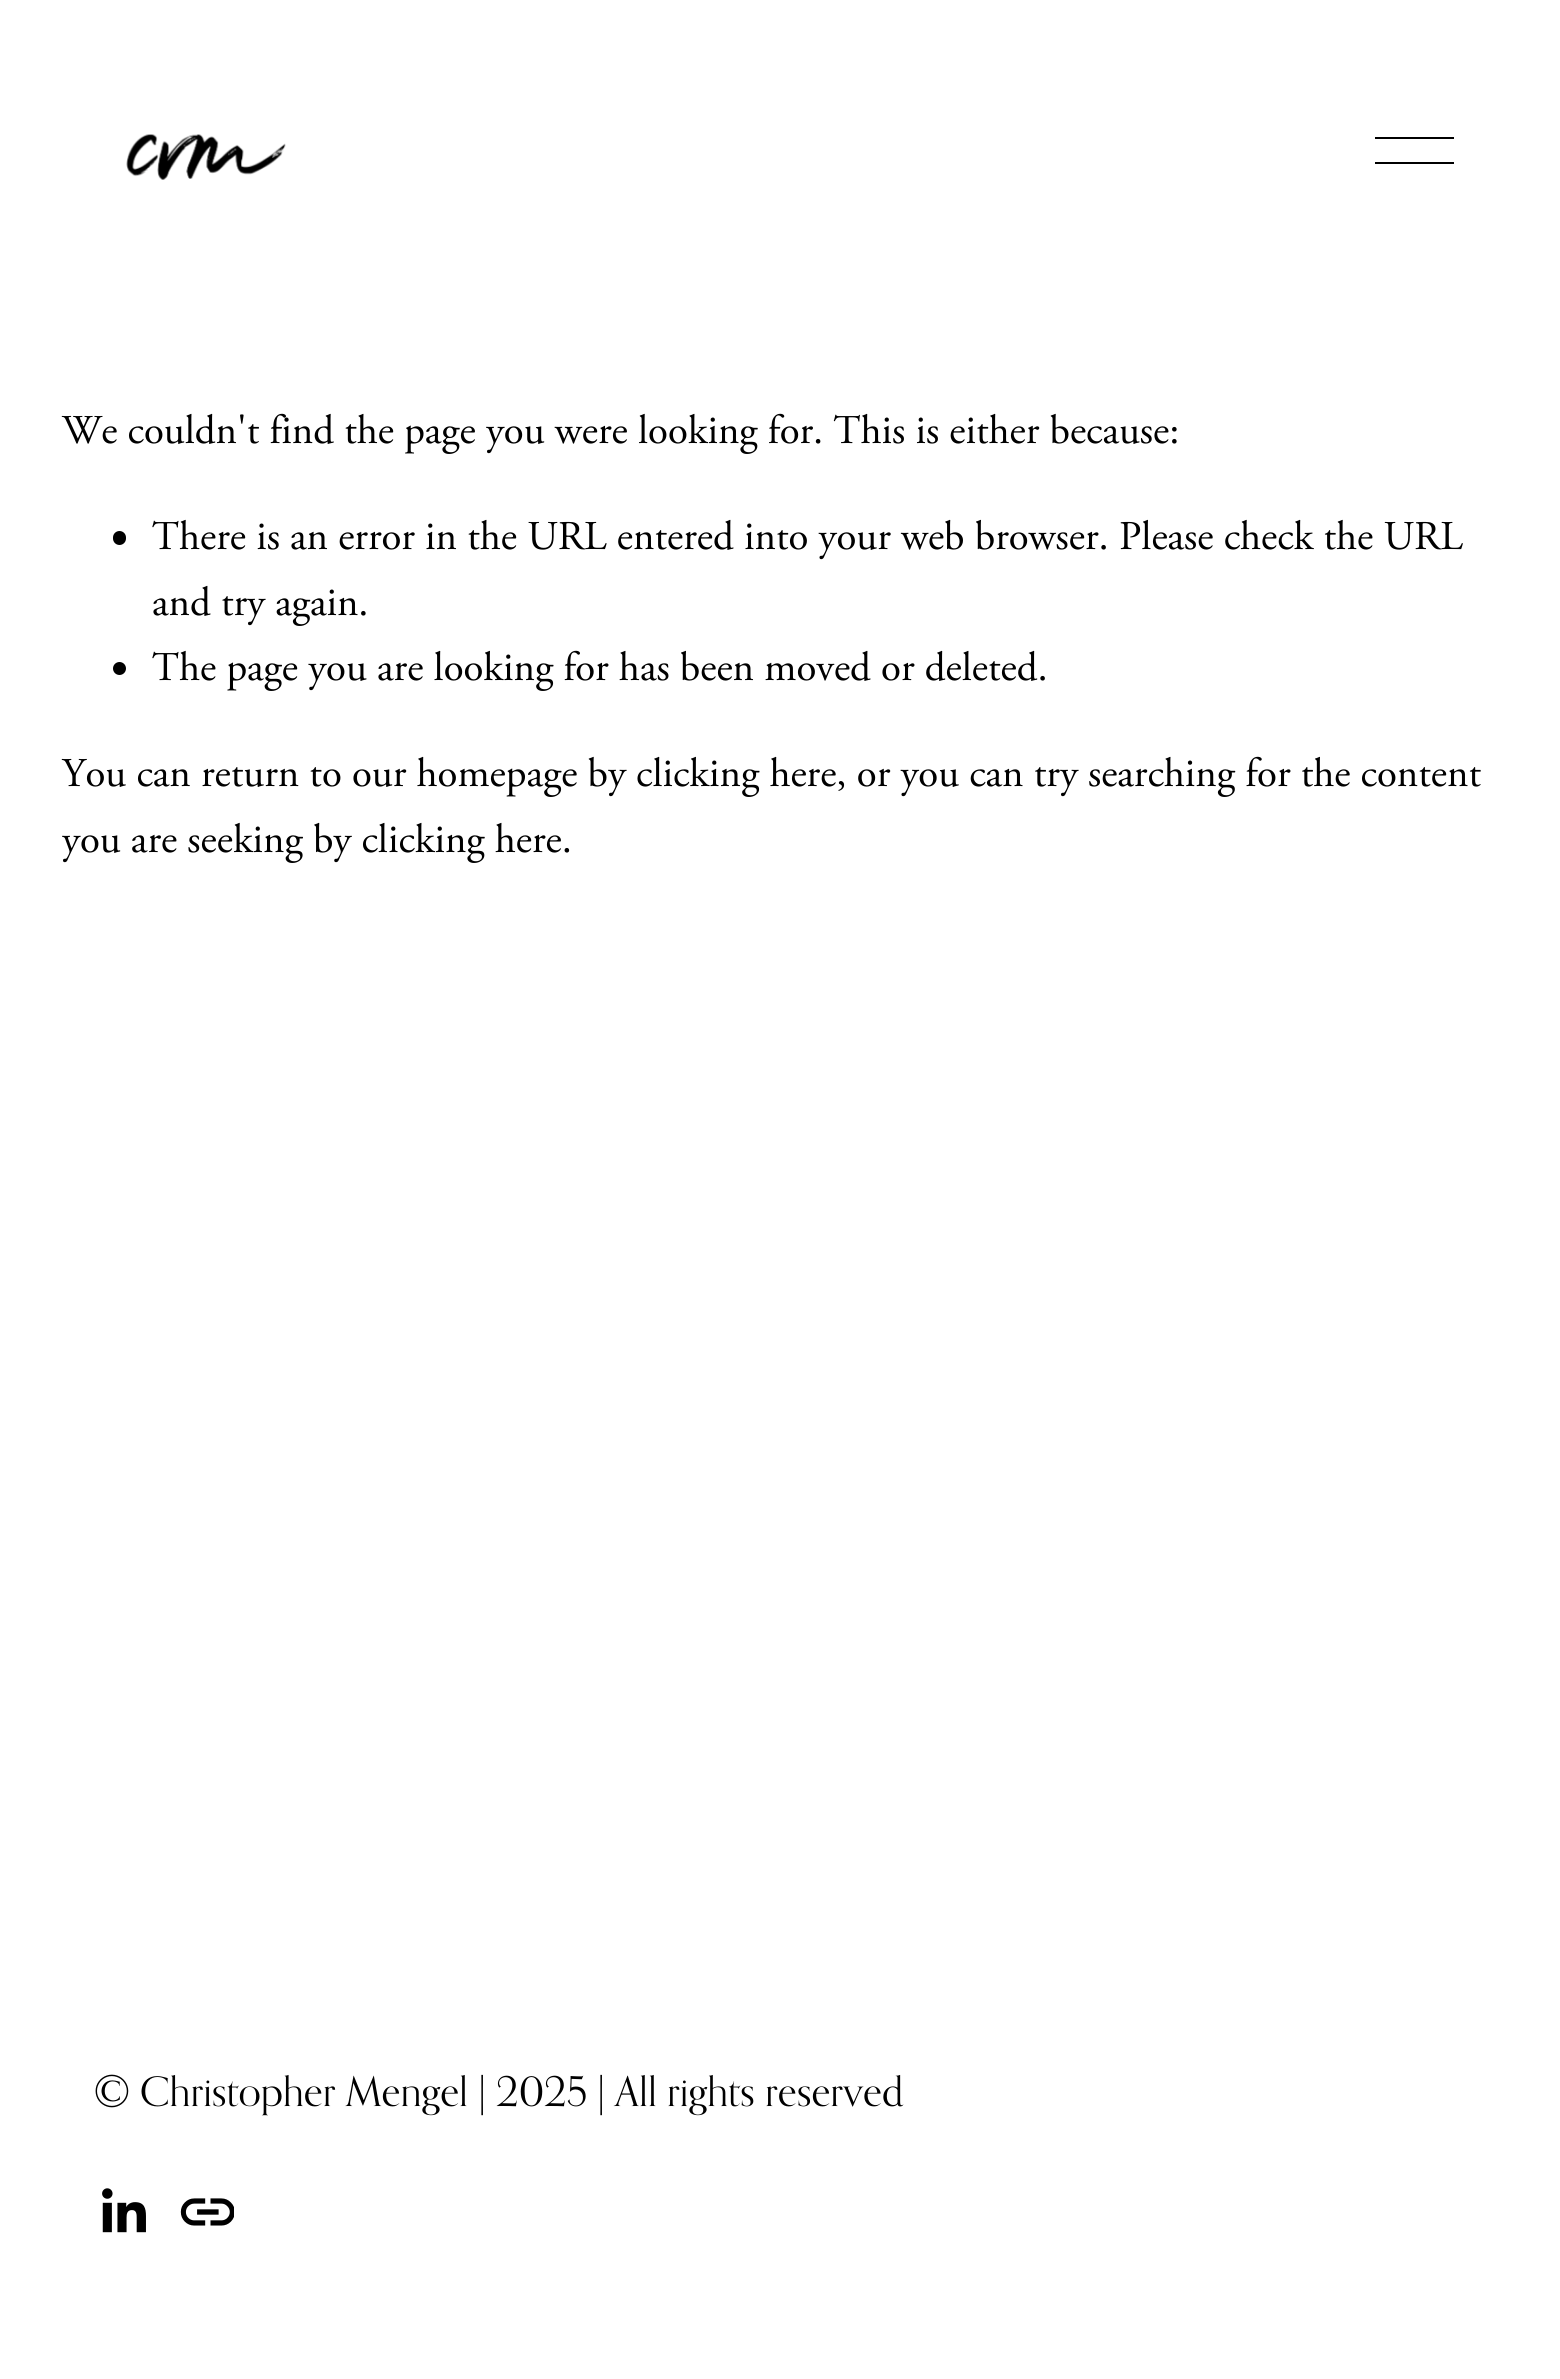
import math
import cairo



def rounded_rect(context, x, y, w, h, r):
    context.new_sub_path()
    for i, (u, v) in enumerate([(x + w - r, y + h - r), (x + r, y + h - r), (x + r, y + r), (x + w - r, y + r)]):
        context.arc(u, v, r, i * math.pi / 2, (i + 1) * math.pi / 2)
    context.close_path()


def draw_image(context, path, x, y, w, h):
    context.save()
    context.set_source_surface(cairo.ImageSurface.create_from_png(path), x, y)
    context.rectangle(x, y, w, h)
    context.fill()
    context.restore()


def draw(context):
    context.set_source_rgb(1, 1, 1)
    context.paint()
    draw_image(context, "images/1.png", 126, 134, 160, 46)
    context.set_source_rgb(0, 0, 0)
    context.rectangle(1375, 137, 79, 2)
    context.fill()
    context.rectangle(1375, 162, 79, 2)
    context.fill()
    rounded_rect(context, 113, 531, 13, 14, 6.5)
    context.fill()
    context.arc(119.5, 668.5, 6.5, 0, 2 * math.pi)
    context.fill()
    draw_image(context, "images/2.png", 102, 2188, 44, 45)
    draw_image(context, "images/3.png", 180, 2198, 54, 28)
    context.select_font_face("Adobe Garamond")
    context.set_font_size(40.85)
    context.move_to(62, 443)
    context.show_text("We couldn't find the page you were looking for. This is either because:")
    context.move_to(152, 549)
    context.show_text("There is an error in the URL entered into your web browser. Please check the URL")
    context.move_to(152, 615)
    context.show_text("and try again.")
    context.move_to(152, 680)
    context.show_text("The page you are looking for has been moved or deleted.")
    context.move_to(62, 786)
    context.show_text("You can return to our homepage by clicking here, or you can try searching for the content")
    context.move_to(62, 852)
    context.show_text("you are seeking by clicking here.")
    context.select_font_face("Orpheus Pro")
    context.move_to(94, 2106)
    context.show_text("© Christopher Mengel | 2025 | All rights reserved")


surface = cairo.ImageSurface(cairo.Format.RGB24, 1560, 2379)
context = cairo.Context(surface)
options = cairo.FontOptions()
options.set_hint_metrics(cairo.HintMetrics.OFF)
options.set_hint_style(cairo.HintStyle.NONE)
context.set_font_options(options)
context.set_miter_limit(4)
draw(context)
surface.write_to_png("out.png")
